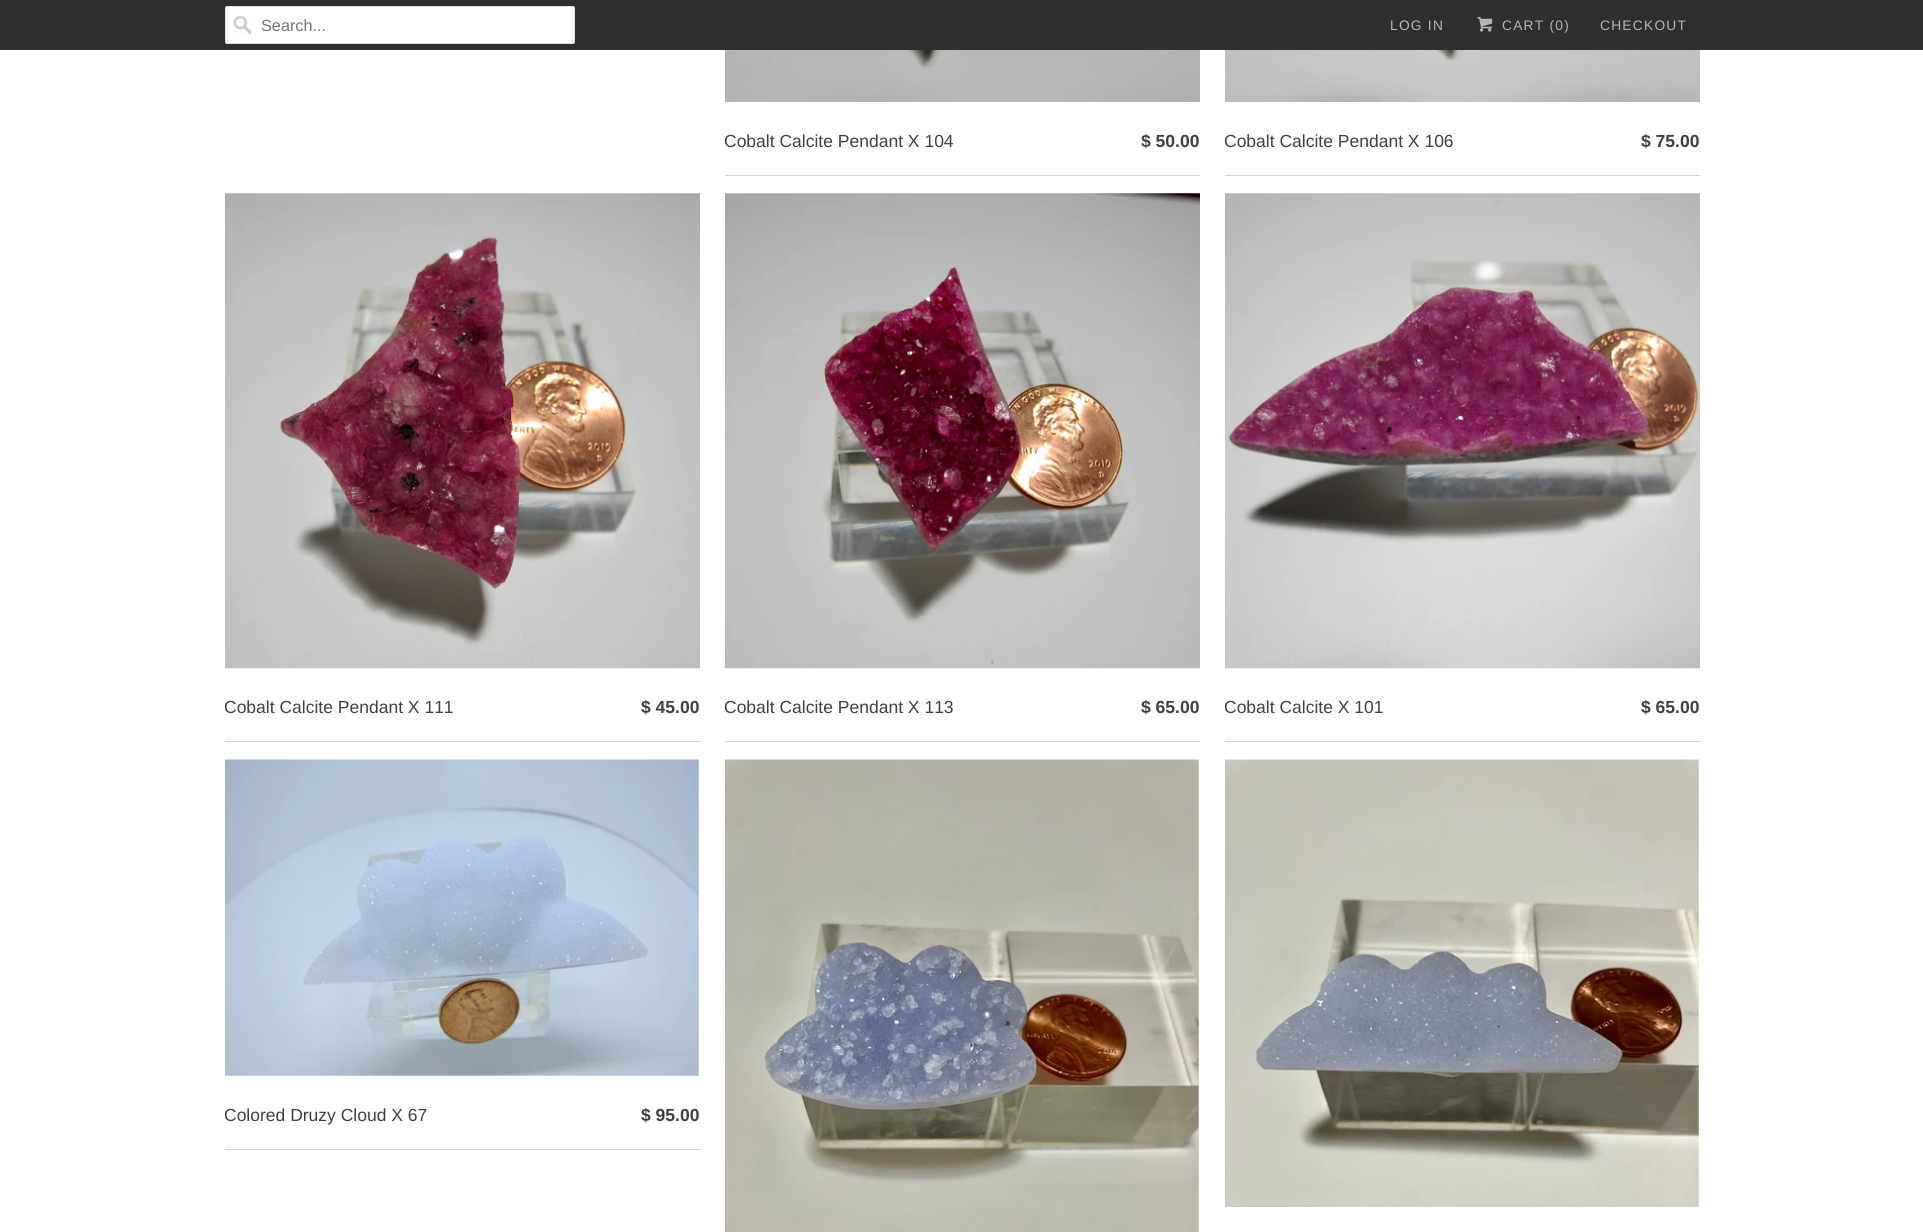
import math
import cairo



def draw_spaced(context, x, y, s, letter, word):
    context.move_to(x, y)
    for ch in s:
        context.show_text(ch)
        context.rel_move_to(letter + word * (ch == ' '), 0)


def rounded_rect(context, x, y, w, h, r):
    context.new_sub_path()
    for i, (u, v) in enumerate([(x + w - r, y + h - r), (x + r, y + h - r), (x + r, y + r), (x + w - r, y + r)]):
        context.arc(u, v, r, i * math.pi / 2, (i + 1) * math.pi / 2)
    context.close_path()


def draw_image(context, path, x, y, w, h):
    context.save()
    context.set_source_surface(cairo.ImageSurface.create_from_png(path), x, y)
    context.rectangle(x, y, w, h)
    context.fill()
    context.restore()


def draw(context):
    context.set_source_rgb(1, 1, 1)
    context.paint()
    context.set_source_rgb(48 / 255, 47 / 255, 48 / 255)
    context.rectangle(0, 0, 1923, 50)
    context.fill()
    context.set_source_rgb(1, 1, 1)
    rounded_rect(context, 225, 6, 350, 38, 2.5)
    context.fill()
    draw_image(context, "images/1.png", 233, 16, 19, 18)
    rounded_rect(context, 225.5, 6.5, 349, 37, 2)
    context.set_source_rgb(223 / 255, 223 / 255, 223 / 255)
    context.set_line_width(1)
    context.stroke()
    draw_image(context, "images/2.png", 1477, 17, 16, 15)
    context.set_source_rgb(211 / 255, 211 / 255, 211 / 255)
    context.rectangle(725, 175, 475, 1)
    context.fill()
    draw_image(context, "images/3.png", 725, 50, 475, 52)
    context.rectangle(1225, 175, 475, 1)
    context.fill()
    draw_image(context, "images/4.png", 1225, 50, 475, 52)
    context.rectangle(225, 741, 475, 1)
    context.fill()
    draw_image(context, "images/5.png", 225, 193, 475, 476)
    context.rectangle(725, 741, 475, 1)
    context.fill()
    draw_image(context, "images/6.png", 725, 193, 475, 476)
    context.rectangle(1225, 741, 475, 1)
    context.fill()
    draw_image(context, "images/7.png", 1225, 193, 475, 476)
    context.rectangle(225, 1149, 475, 1)
    context.fill()
    draw_image(context, "images/8.png", 225, 759, 474, 317)
    draw_image(context, "images/9.png", 725, 759, 474, 473)
    draw_image(context, "images/10.png", 1225, 759, 474, 448)
    context.select_font_face("Liberation Sans")
    context.set_font_size(16.25)
    context.set_source_rgb(117 / 255, 117 / 255, 117 / 255)
    context.move_to(261, 31)
    context.show_text("Search...")
    context.set_font_size(13.75)
    context.set_source_rgb(182 / 255, 182 / 255, 182 / 255)
    draw_spaced(context, 1390, 30, "LOG IN", 1.25, 0)
    draw_spaced(context, 1502, 30, "CART (0)", 1.25, 0)
    draw_spaced(context, 1600, 30, "CHECKOUT", 1.25, 0)
    context.set_font_size(17.5)
    context.set_source_rgb(64 / 255, 64 / 255, 64 / 255)
    context.move_to(724, 147)
    context.show_text("Cobalt Calcite Pendant X 104")
    context.select_font_face("Liberation Sans", cairo.FontSlant.NORMAL, cairo.FontWeight.BOLD)
    context.move_to(1141, 147)
    context.show_text("$ 50.00")
    context.select_font_face("Liberation Sans")
    context.move_to(1224, 147)
    context.show_text("Cobalt Calcite Pendant X 106")
    context.select_font_face("Liberation Sans", cairo.FontSlant.NORMAL, cairo.FontWeight.BOLD)
    context.move_to(1641, 147)
    context.show_text("$ 75.00")
    context.select_font_face("Liberation Sans")
    context.move_to(224, 713)
    context.show_text("Cobalt Calcite Pendant X 111")
    context.select_font_face("Liberation Sans", cairo.FontSlant.NORMAL, cairo.FontWeight.BOLD)
    context.move_to(641, 713)
    context.show_text("$ 45.00")
    context.select_font_face("Liberation Sans")
    context.move_to(724, 713)
    context.show_text("Cobalt Calcite Pendant X 113")
    context.select_font_face("Liberation Sans", cairo.FontSlant.NORMAL, cairo.FontWeight.BOLD)
    context.move_to(1141, 713)
    context.show_text("$ 65.00")
    context.select_font_face("Liberation Sans")
    context.move_to(1224, 713)
    context.show_text("Cobalt Calcite X 101")
    context.select_font_face("Liberation Sans", cairo.FontSlant.NORMAL, cairo.FontWeight.BOLD)
    context.move_to(1641, 713)
    context.show_text("$ 65.00")
    context.select_font_face("Liberation Sans")
    context.move_to(224, 1121)
    context.show_text("Colored Druzy Cloud X 67")
    context.select_font_face("Liberation Sans", cairo.FontSlant.NORMAL, cairo.FontWeight.BOLD)
    context.move_to(641, 1121)
    context.show_text("$ 95.00")


surface = cairo.ImageSurface(cairo.Format.RGB24, 1923, 1232)
context = cairo.Context(surface)
options = cairo.FontOptions()
options.set_hint_metrics(cairo.HintMetrics.OFF)
options.set_hint_style(cairo.HintStyle.NONE)
context.set_font_options(options)
context.set_miter_limit(4)
draw(context)
surface.write_to_png("out.png")
